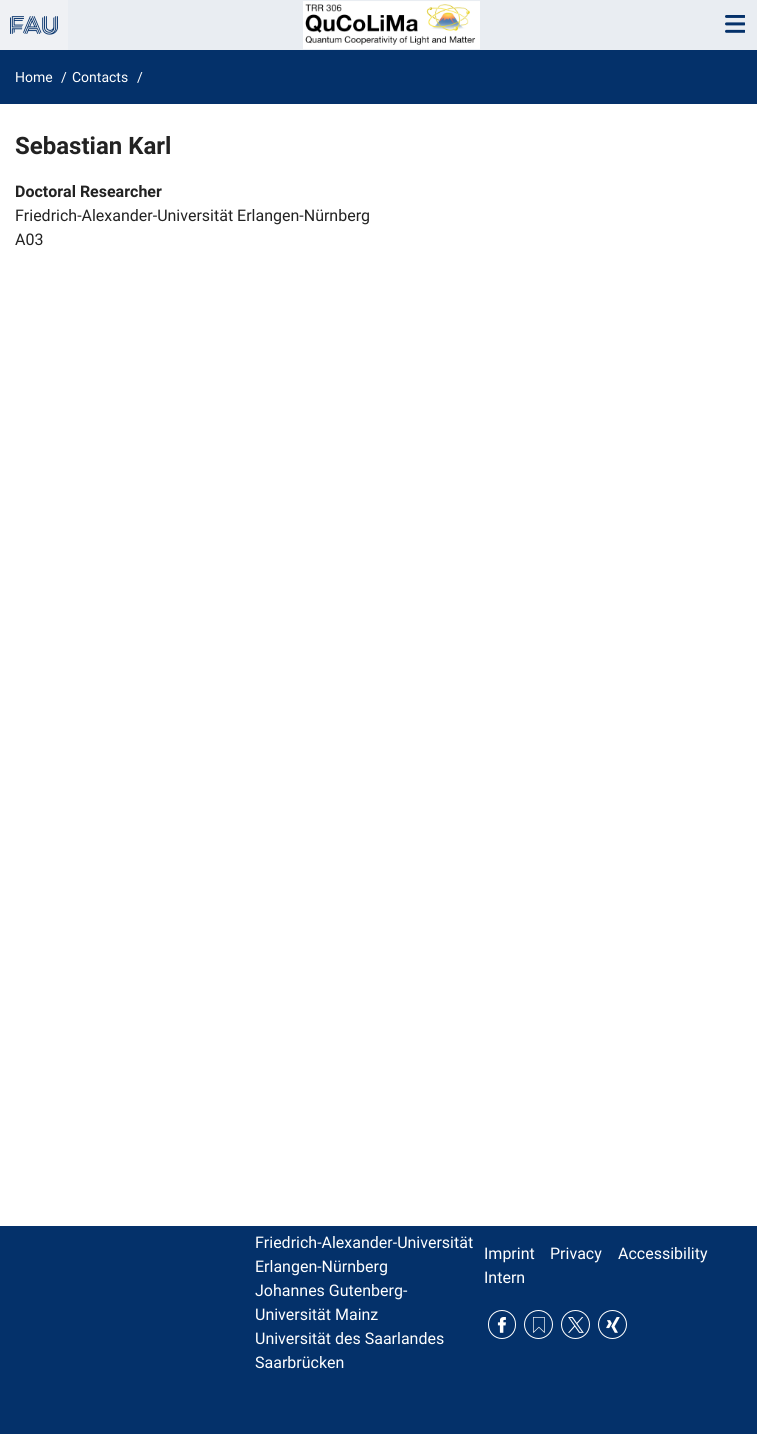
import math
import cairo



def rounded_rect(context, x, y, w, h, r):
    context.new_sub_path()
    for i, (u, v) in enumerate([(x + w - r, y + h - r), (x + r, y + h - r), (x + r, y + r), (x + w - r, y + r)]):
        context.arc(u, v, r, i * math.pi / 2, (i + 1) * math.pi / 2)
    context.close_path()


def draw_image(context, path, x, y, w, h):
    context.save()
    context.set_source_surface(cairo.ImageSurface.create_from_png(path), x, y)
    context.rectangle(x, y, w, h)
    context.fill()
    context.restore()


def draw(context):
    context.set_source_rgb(1, 1, 1)
    context.paint()
    context.set_source_rgb(233 / 255, 237 / 255, 242 / 255)
    context.rectangle(68, 0, 689, 50)
    context.fill()
    context.set_source_rgb(239 / 255, 241 / 255, 244 / 255)
    context.rectangle(0, 0, 68, 50)
    context.fill()
    draw_image(context, "images/1.png", 10, 16, 48, 19)
    draw_image(context, "images/2.png", 303, 1, 177, 48)
    draw_image(context, "images/3.png", 725, 15, 20, 18)
    context.set_source_rgb(4 / 255, 49 / 255, 106 / 255)
    context.rectangle(0, 50, 757, 54)
    context.fill()
    context.rectangle(0, 1226, 757, 208)
    context.fill()
    rounded_rect(context, 488.5, 1310.5, 27, 28, 13.5)
    context.set_source_rgb(1, 1, 1)
    context.set_line_width(1)
    context.stroke()
    draw_image(context, "images/4.png", 497, 1317, 9, 16)
    context.arc(538.5, 1324.5, 14, 0, 2 * math.pi)
    context.stroke()
    draw_image(context, "images/5.png", 533, 1317, 12, 16)
    context.arc(575.5, 1324.5, 14, 0, 2 * math.pi)
    context.stroke()
    draw_image(context, "images/6.png", 568, 1317, 16, 16)
    context.arc(612.5, 1324.5, 14, 0, 2 * math.pi)
    context.stroke()
    draw_image(context, "images/7.png", 606, 1317, 14, 16)
    context.select_font_face("Roboto")
    context.set_font_size(14)
    context.move_to(15, 82)
    context.show_text("Home")
    context.move_to(61, 82)
    context.show_text("/")
    context.move_to(72, 82)
    context.show_text("Contacts")
    context.move_to(137, 82)
    context.show_text("/")
    context.select_font_face("Roboto", cairo.FontSlant.NORMAL, cairo.FontWeight.BOLD)
    context.set_font_size(24)
    context.set_source_rgb(34 / 255, 34 / 255, 34 / 255)
    context.move_to(15, 154)
    context.show_text("Sebastian Karl")
    context.set_font_size(16)
    context.move_to(15, 197)
    context.show_text("Doctoral Researcher")
    context.select_font_face("Roboto")
    context.move_to(15, 221)
    context.show_text("Friedrich-Alexander-Universität Erlangen-Nürnberg")
    context.move_to(15, 245)
    context.show_text("A03")
    context.set_source_rgb(1, 1, 1)
    context.move_to(255, 1248)
    context.show_text("Friedrich-Alexander-Universität")
    context.move_to(255, 1272)
    context.show_text("Erlangen-Nürnberg")
    context.move_to(255, 1296)
    context.show_text("Johannes Gutenberg-")
    context.move_to(255, 1320)
    context.show_text("Universität Mainz")
    context.move_to(255, 1344)
    context.show_text("Universität des Saarlandes")
    context.move_to(255, 1368)
    context.show_text("Saarbrücken")
    context.move_to(484, 1259)
    context.show_text("Imprint")
    context.move_to(550, 1259)
    context.show_text("Privacy")
    context.move_to(618, 1259)
    context.show_text("Accessibility")
    context.move_to(484, 1283)
    context.show_text("Intern")


surface = cairo.ImageSurface(cairo.Format.RGB24, 757, 1434)
context = cairo.Context(surface)
options = cairo.FontOptions()
options.set_hint_metrics(cairo.HintMetrics.OFF)
options.set_hint_style(cairo.HintStyle.NONE)
context.set_font_options(options)
context.set_miter_limit(4)
draw(context)
surface.write_to_png("out.png")
